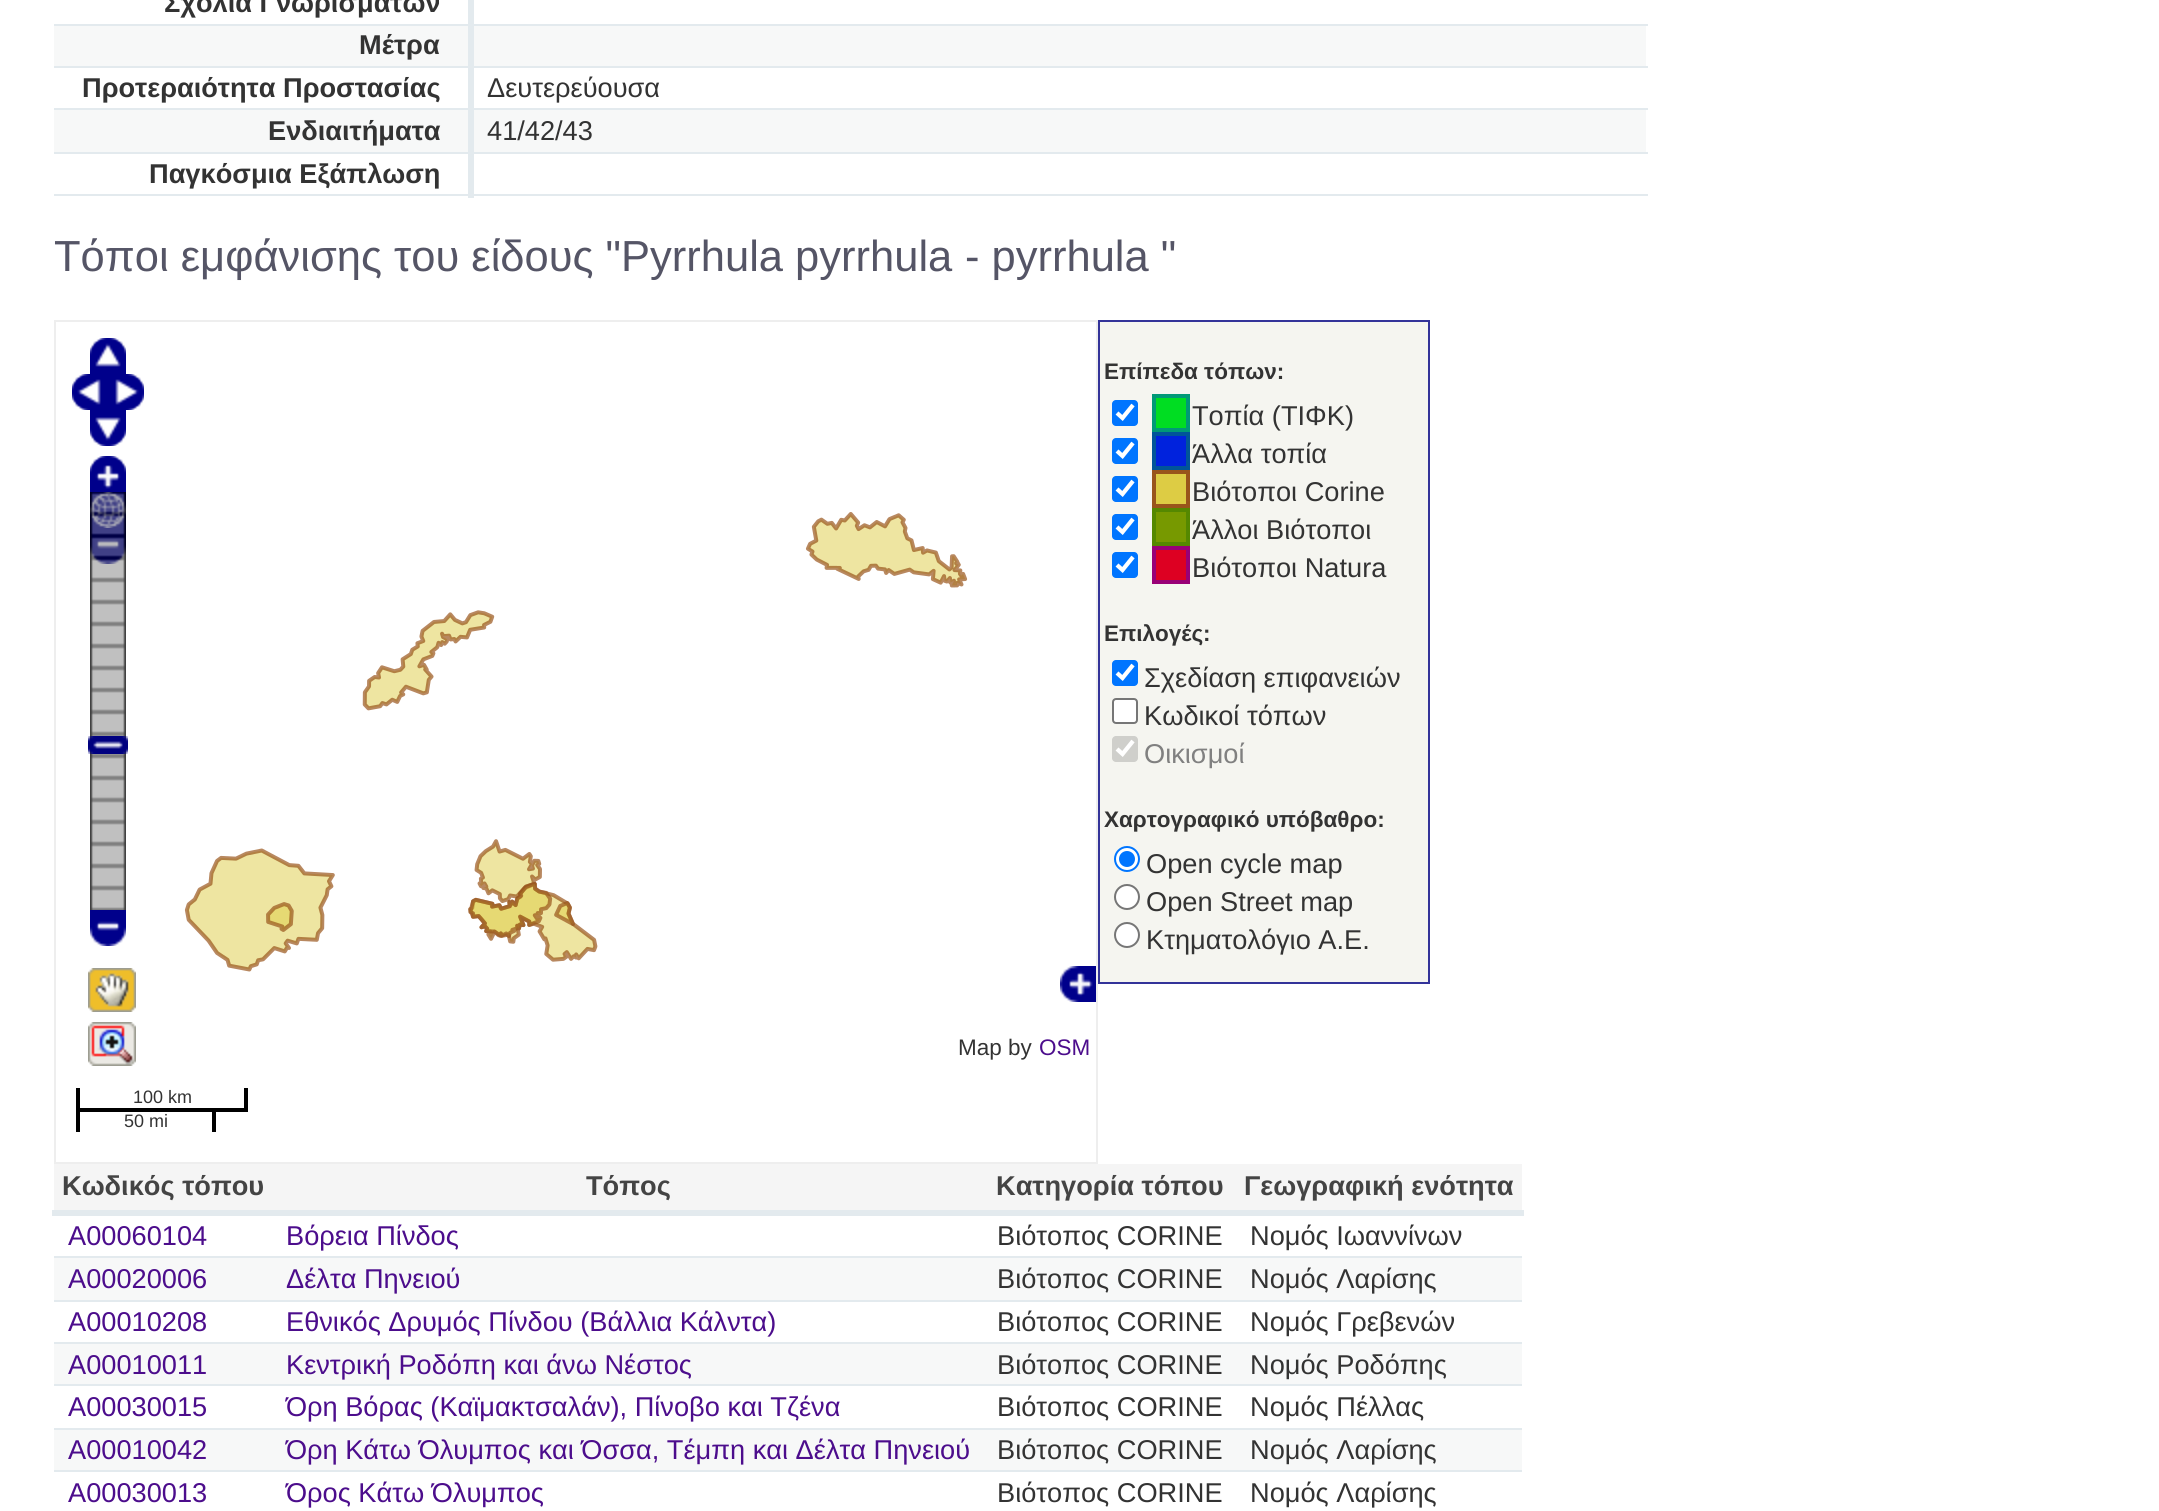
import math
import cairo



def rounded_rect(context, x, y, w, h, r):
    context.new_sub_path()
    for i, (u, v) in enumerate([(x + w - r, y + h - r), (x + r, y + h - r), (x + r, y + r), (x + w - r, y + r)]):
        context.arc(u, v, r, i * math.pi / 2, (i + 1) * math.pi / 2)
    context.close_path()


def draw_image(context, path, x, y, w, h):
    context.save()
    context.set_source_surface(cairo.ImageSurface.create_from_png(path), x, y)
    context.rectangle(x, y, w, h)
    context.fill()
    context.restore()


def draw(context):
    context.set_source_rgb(1, 1, 1)
    context.paint()
    context.set_source_rgb(227 / 255, 234 / 255, 238 / 255)
    context.rectangle(54, 24, 1594, 2)
    context.fill()
    context.set_source_rgb(247 / 255, 248 / 255, 248 / 255)
    context.rectangle(474, 26, 1172, 40)
    context.fill()
    context.set_source_rgb(227 / 255, 234 / 255, 238 / 255)
    context.rectangle(54, 66, 1594, 2)
    context.fill()
    context.set_source_rgb(247 / 255, 248 / 255, 248 / 255)
    context.rectangle(54, 26, 414, 40)
    context.fill()
    context.set_source_rgb(227 / 255, 234 / 255, 238 / 255)
    context.rectangle(54, 108, 1594, 2)
    context.fill()
    context.set_source_rgb(247 / 255, 248 / 255, 248 / 255)
    context.rectangle(54, 110, 414, 42)
    context.fill()
    context.rectangle(474, 110, 1172, 42)
    context.fill()
    context.set_source_rgb(227 / 255, 234 / 255, 238 / 255)
    context.rectangle(54, 152, 1594, 2)
    context.fill()
    context.rectangle(54, 194, 1594, 2)
    context.fill()
    context.rectangle(468, 0, 6, 198)
    context.fill()
    context.set_source_rgb(245 / 255, 245 / 255, 240 / 255)
    context.rectangle(1099, 321, 330, 662)
    context.fill_preserve()
    context.set_source_rgb(51 / 255, 51 / 255, 153 / 255)
    context.stroke()
    context.set_source_rgb(0, 117 / 255, 1)
    rounded_rect(context, 1112, 400, 26, 26, 4)
    context.fill()
    context.new_path()
    context.move_to(1117, 413)
    context.line_to(1122.5, 418)
    context.line_to(1133, 405)
    context.set_source_rgb(1, 1, 1)
    context.set_line_width(4.2)
    context.stroke()
    context.set_source_rgb(0, 221 / 255, 34 / 255)
    context.rectangle(1154, 396, 34, 34)
    context.fill_preserve()
    context.set_source_rgb(0, 153 / 255, 119 / 255)
    context.set_line_width(4)
    context.stroke()
    context.set_source_rgb(0, 117 / 255, 1)
    rounded_rect(context, 1112, 438, 26, 26, 4)
    context.fill()
    context.new_path()
    context.move_to(1117, 451)
    context.line_to(1122.5, 456)
    context.line_to(1133, 443)
    context.set_source_rgb(1, 1, 1)
    context.set_line_width(4.2)
    context.stroke()
    context.set_source_rgb(0, 34 / 255, 221 / 255)
    context.rectangle(1154, 434, 34, 34)
    context.fill_preserve()
    context.set_source_rgb(0, 85 / 255, 153 / 255)
    context.set_line_width(4)
    context.stroke()
    context.set_source_rgb(0, 117 / 255, 1)
    rounded_rect(context, 1112, 476, 26, 26, 4)
    context.fill()
    context.new_path()
    context.move_to(1117, 489)
    context.line_to(1122.5, 494)
    context.line_to(1133, 481)
    context.set_source_rgb(1, 1, 1)
    context.set_line_width(4.2)
    context.stroke()
    context.set_source_rgb(221 / 255, 204 / 255, 68 / 255)
    context.rectangle(1154, 472, 34, 34)
    context.fill_preserve()
    context.set_source_rgb(153 / 255, 85 / 255, 27 / 255)
    context.set_line_width(4)
    context.stroke()
    context.set_source_rgb(0, 117 / 255, 1)
    rounded_rect(context, 1112, 514, 26, 26, 4)
    context.fill()
    context.new_path()
    context.move_to(1117, 527)
    context.line_to(1122.5, 532)
    context.line_to(1133, 519)
    context.set_source_rgb(1, 1, 1)
    context.set_line_width(4.2)
    context.stroke()
    context.set_source_rgb(119 / 255, 153 / 255, 0)
    context.rectangle(1154, 510, 34, 34)
    context.fill_preserve()
    context.set_source_rgb(85 / 255, 136 / 255, 0)
    context.set_line_width(4)
    context.stroke()
    context.set_source_rgb(0, 117 / 255, 1)
    rounded_rect(context, 1112, 552, 26, 26, 4)
    context.fill()
    context.new_path()
    context.move_to(1117, 565)
    context.line_to(1122.5, 570)
    context.line_to(1133, 557)
    context.set_source_rgb(1, 1, 1)
    context.set_line_width(4.2)
    context.stroke()
    context.set_source_rgb(221 / 255, 0, 34 / 255)
    context.rectangle(1154, 548, 34, 34)
    context.fill_preserve()
    context.set_source_rgb(153 / 255, 0, 119 / 255)
    context.set_line_width(4)
    context.stroke()
    context.set_source_rgb(0, 117 / 255, 1)
    rounded_rect(context, 1112, 660, 26, 26, 4)
    context.fill()
    context.new_path()
    context.move_to(1117, 673)
    context.line_to(1122.5, 678)
    context.line_to(1133, 665)
    context.set_source_rgb(1, 1, 1)
    context.set_line_width(4.2)
    context.stroke()
    rounded_rect(context, 1113, 699, 24, 24, 3)
    context.fill_preserve()
    context.set_source_rgb(118 / 255, 118 / 255, 118 / 255)
    context.set_line_width(2)
    context.stroke()
    context.set_source_rgb(207 / 255, 207 / 255, 203 / 255)
    rounded_rect(context, 1112, 736, 26, 26, 4)
    context.fill()
    context.new_path()
    context.move_to(1117, 749)
    context.line_to(1122.5, 754)
    context.line_to(1133, 741)
    context.set_source_rgb(1, 1, 1)
    context.set_line_width(4.2)
    context.stroke()
    context.arc(1127, 859, 12, 0, 2 * math.pi)
    context.fill_preserve()
    context.set_source_rgb(0, 117 / 255, 1)
    context.set_line_width(2)
    context.stroke()
    context.arc(1127, 859, 8, 0, 2 * math.pi)
    context.fill()
    context.set_source_rgb(1, 1, 1)
    context.arc(1127, 897, 12, 0, 2 * math.pi)
    context.fill_preserve()
    context.set_source_rgb(118 / 255, 118 / 255, 118 / 255)
    context.stroke()
    context.set_source_rgb(1, 1, 1)
    context.arc(1127, 935, 12, 0, 2 * math.pi)
    context.fill_preserve()
    context.set_source_rgb(118 / 255, 118 / 255, 118 / 255)
    context.stroke()
    context.rectangle(55, 321, 1042, 842)
    context.set_source_rgb(238 / 255, 238 / 255, 238 / 255)
    context.stroke()
    draw_image(context, "images/1.png", 90, 338, 36, 36)
    draw_image(context, "images/2.png", 72, 374, 36, 36)
    draw_image(context, "images/3.png", 108, 374, 36, 36)
    draw_image(context, "images/4.png", 90, 410, 36, 36)
    draw_image(context, "images/5.png", 90, 456, 36, 36)
    draw_image(context, "images/6.png", 90, 492, 36, 36)
    draw_image(context, "images/7.png", 90, 528, 36, 36)
    draw_image(context, "images/8.png", 90, 338, 36, 19)
    draw_image(context, "images/9.png", 72, 374, 19, 36)
    draw_image(context, "images/10.png", 125, 374, 19, 36)
    draw_image(context, "images/11.png", 90, 427, 36, 19)
    draw_image(context, "images/12.png", 90, 456, 36, 19)
    draw_image(context, "images/13.png", 90, 492, 36, 418)
    draw_image(context, "images/14.png", 88, 736, 40, 18)
    draw_image(context, "images/7.png", 90, 910, 36, 36)
    draw_image(context, "images/15.png", 184, 512, 784, 460)
    draw_image(context, "images/16.png", 88, 968, 48, 44)
    draw_image(context, "images/17.png", 88, 1022, 48, 44)
    draw_image(context, "images/18.png", 1060, 966, 36, 36)
    context.set_source_rgb(0, 0, 0)
    context.rectangle(244, 1088, 4, 24)
    context.fill()
    context.rectangle(76, 1108, 172, 4)
    context.fill()
    context.rectangle(76, 1088, 4, 44)
    context.fill()
    context.rectangle(212, 1108, 4, 24)
    context.fill()
    context.set_source_rgb(245 / 255, 245 / 255, 245 / 255)
    context.rectangle(54, 1164, 1468, 46)
    context.fill()
    context.set_source_rgb(227 / 255, 234 / 255, 238 / 255)
    context.rectangle(52, 1210, 1472, 6)
    context.fill()
    context.rectangle(54, 1256, 1468, 2)
    context.fill()
    context.set_source_rgb(247 / 255, 248 / 255, 248 / 255)
    context.rectangle(54, 1258, 1468, 42)
    context.fill()
    context.set_source_rgb(227 / 255, 234 / 255, 238 / 255)
    context.rectangle(54, 1300, 1468, 2)
    context.fill()
    context.rectangle(54, 1342, 1468, 2)
    context.fill()
    context.set_source_rgb(247 / 255, 248 / 255, 248 / 255)
    context.rectangle(54, 1344, 1468, 40)
    context.fill()
    context.set_source_rgb(227 / 255, 234 / 255, 238 / 255)
    context.rectangle(54, 1384, 1468, 2)
    context.fill()
    context.rectangle(54, 1428, 1468, 2)
    context.fill()
    context.set_source_rgb(247 / 255, 248 / 255, 248 / 255)
    context.rectangle(54, 1430, 1468, 40)
    context.fill()
    context.set_source_rgb(227 / 255, 234 / 255, 238 / 255)
    context.rectangle(54, 1470, 1468, 2)
    context.fill()
    context.select_font_face("Liberation Sans", cairo.FontSlant.NORMAL, cairo.FontWeight.BOLD)
    context.set_font_size(27.2)
    context.set_source_rgb(51 / 255, 51 / 255, 51 / 255)
    context.move_to(164, 12)
    context.show_text("Σχόλια Γνωρισμάτων")
    context.move_to(359, 54)
    context.show_text("Μέτρα")
    context.move_to(82, 97)
    context.show_text("Προτεραιότητα Προστασίας")
    context.select_font_face("Liberation Sans")
    context.move_to(487, 97)
    context.show_text("Δευτερεύουσα")
    context.select_font_face("Liberation Sans", cairo.FontSlant.NORMAL, cairo.FontWeight.BOLD)
    context.move_to(268, 140)
    context.show_text("Ενδιαιτήματα")
    context.select_font_face("Liberation Sans")
    context.move_to(487, 140)
    context.show_text("41/42/43")
    context.select_font_face("Liberation Sans", cairo.FontSlant.NORMAL, cairo.FontWeight.BOLD)
    context.move_to(149, 183)
    context.show_text("Παγκόσμια Εξάπλωση")
    context.select_font_face("Liberation Sans")
    context.set_font_size(43.5)
    context.set_source_rgb(85 / 255, 85 / 255, 102 / 255)
    context.move_to(54, 271)
    context.show_text("Τόποι εμφάνισης του είδους \"Pyrrhula pyrrhula")
    context.move_to(965, 271)
    context.show_text("- pyrrhula \"")
    context.select_font_face("Liberation Sans", cairo.FontSlant.NORMAL, cairo.FontWeight.BOLD)
    context.set_font_size(22.5)
    context.set_source_rgb(51 / 255, 51 / 255, 51 / 255)
    context.move_to(1104, 379)
    context.show_text("Επίπεδα τόπων:")
    context.select_font_face("Liberation Sans")
    context.set_font_size(27.2)
    context.move_to(1192, 425)
    context.show_text("Τοπία (ΤΙΦΚ)")
    context.move_to(1192, 463)
    context.show_text("Άλλα τοπία")
    context.move_to(1192, 501)
    context.show_text("Βιότοποι Corine")
    context.move_to(1192, 539)
    context.show_text("Άλλοι Βιότοποι")
    context.move_to(1192, 577)
    context.show_text("Βιότοποι Natura")
    context.select_font_face("Liberation Sans", cairo.FontSlant.NORMAL, cairo.FontWeight.BOLD)
    context.set_font_size(22.5)
    context.move_to(1104, 641)
    context.show_text("Επιλογές:")
    context.select_font_face("Liberation Sans")
    context.set_font_size(27.2)
    context.move_to(1144, 687)
    context.show_text("Σχεδίαση επιφανειών")
    context.move_to(1144, 725)
    context.show_text("Κωδικοί τόπων")
    context.set_source_rgb(128 / 255, 128 / 255, 128 / 255)
    context.move_to(1144, 763)
    context.show_text("Οικισμοί")
    context.select_font_face("Liberation Sans", cairo.FontSlant.NORMAL, cairo.FontWeight.BOLD)
    context.set_font_size(22.5)
    context.set_source_rgb(51 / 255, 51 / 255, 51 / 255)
    context.move_to(1104, 827)
    context.show_text("Χαρτογραφικό υπόβαθρο:")
    context.select_font_face("Liberation Sans")
    context.set_font_size(27.2)
    context.move_to(1146, 873)
    context.show_text("Open cycle map")
    context.move_to(1146, 911)
    context.show_text("Open Street map")
    context.move_to(1146, 949)
    context.show_text("Κτηματολόγιο Α.Ε.")
    context.set_font_size(22.5)
    context.move_to(958, 1055)
    context.show_text("Map by")
    context.set_source_rgb(76 / 255, 13 / 255, 140 / 255)
    context.move_to(1039, 1055)
    context.show_text("OSM")
    context.set_font_size(18)
    context.set_source_rgb(51 / 255, 51 / 255, 51 / 255)
    context.move_to(133, 1103)
    context.show_text("100 km")
    context.move_to(124, 1127)
    context.show_text("50 mi")
    context.select_font_face("Liberation Sans", cairo.FontSlant.NORMAL, cairo.FontWeight.BOLD)
    context.set_font_size(27.2)
    context.set_source_rgb(68 / 255, 68 / 255, 68 / 255)
    context.move_to(62, 1195)
    context.show_text("Κωδικός τόπου")
    context.move_to(586, 1195)
    context.show_text("Τόπος")
    context.move_to(996, 1195)
    context.show_text("Κατηγορία τόπου")
    context.move_to(1244, 1195)
    context.show_text("Γεωγραφική ενότητα")
    context.select_font_face("Liberation Sans")
    context.set_source_rgb(76 / 255, 13 / 255, 140 / 255)
    context.move_to(68, 1245)
    context.show_text("A00060104")
    context.move_to(286, 1245)
    context.show_text("Βόρεια Πίνδος")
    context.set_source_rgb(51 / 255, 51 / 255, 51 / 255)
    context.move_to(997, 1245)
    context.show_text("Βιότοπος CORINE")
    context.move_to(1250, 1245)
    context.show_text("Νομός Ιωαννίνων")
    context.set_source_rgb(76 / 255, 13 / 255, 140 / 255)
    context.move_to(68, 1288)
    context.show_text("A00020006")
    context.move_to(286, 1288)
    context.show_text("Δέλτα Πηνειού")
    context.set_source_rgb(51 / 255, 51 / 255, 51 / 255)
    context.move_to(997, 1288)
    context.show_text("Βιότοπος CORINE")
    context.move_to(1250, 1288)
    context.show_text("Νομός Λαρίσης")
    context.set_source_rgb(76 / 255, 13 / 255, 140 / 255)
    context.move_to(68, 1331)
    context.show_text("A00010208")
    context.move_to(286, 1331)
    context.show_text("Εθνικός Δρυμός Πίνδου (Βάλλια Κάλντα)")
    context.set_source_rgb(51 / 255, 51 / 255, 51 / 255)
    context.move_to(997, 1331)
    context.show_text("Βιότοπος CORINE")
    context.move_to(1250, 1331)
    context.show_text("Νομός Γρεβενών")
    context.set_source_rgb(76 / 255, 13 / 255, 140 / 255)
    context.move_to(68, 1374)
    context.show_text("A00010011")
    context.move_to(286, 1374)
    context.show_text("Κεντρική Ροδόπη και άνω Νέστος")
    context.set_source_rgb(51 / 255, 51 / 255, 51 / 255)
    context.move_to(997, 1374)
    context.show_text("Βιότοπος CORINE")
    context.move_to(1250, 1374)
    context.show_text("Νομός Ροδόπης")
    context.set_source_rgb(76 / 255, 13 / 255, 140 / 255)
    context.move_to(68, 1416)
    context.show_text("A00030015")
    context.move_to(286, 1416)
    context.show_text("Όρη Βόρας (Καϊμακτσαλάν), Πίνοβο και Τζένα")
    context.set_source_rgb(51 / 255, 51 / 255, 51 / 255)
    context.move_to(997, 1416)
    context.show_text("Βιότοπος CORINE")
    context.move_to(1250, 1416)
    context.show_text("Νομός Πέλλας")
    context.set_source_rgb(76 / 255, 13 / 255, 140 / 255)
    context.move_to(68, 1459)
    context.show_text("A00010042")
    context.move_to(286, 1459)
    context.show_text("Όρη Κάτω Όλυμπος και Όσσα, Τέμπη και Δέλτα Πηνειού")
    context.set_source_rgb(51 / 255, 51 / 255, 51 / 255)
    context.move_to(997, 1459)
    context.show_text("Βιότοπος CORINE")
    context.move_to(1250, 1459)
    context.show_text("Νομός Λαρίσης")
    context.set_source_rgb(76 / 255, 13 / 255, 140 / 255)
    context.move_to(68, 1502)
    context.show_text("A00030013")
    context.move_to(286, 1502)
    context.show_text("Όρος Κάτω Όλυμπος")
    context.set_source_rgb(51 / 255, 51 / 255, 51 / 255)
    context.move_to(997, 1502)
    context.show_text("Βιότοπος CORINE")
    context.move_to(1250, 1502)
    context.show_text("Νομός Λαρίσης")


surface = cairo.ImageSurface(cairo.Format.RGB24, 2159, 1511)
context = cairo.Context(surface)
options = cairo.FontOptions()
options.set_hint_metrics(cairo.HintMetrics.OFF)
options.set_hint_style(cairo.HintStyle.NONE)
context.set_font_options(options)
context.set_miter_limit(4)
draw(context)
surface.write_to_png("out.png")
